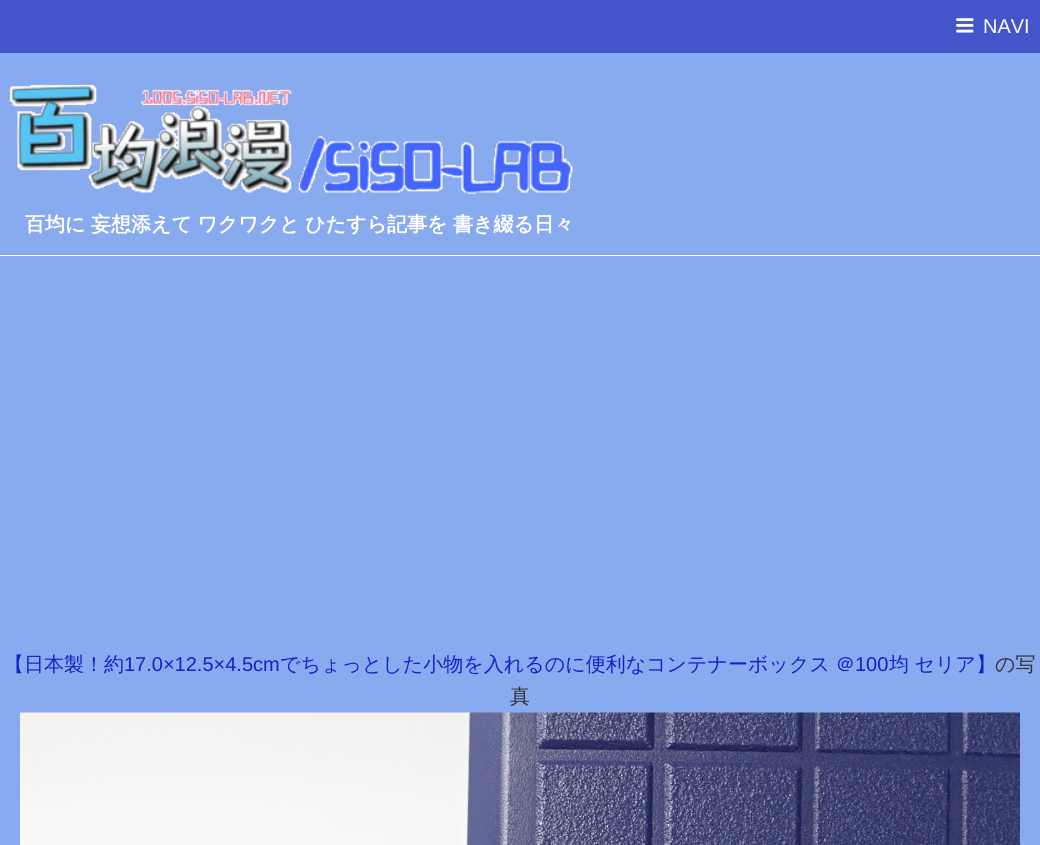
import math
import cairo



def draw_spaced(context, x, y, s, letter, word):
    context.move_to(x, y)
    for ch in s:
        context.show_text(ch)
        context.rel_move_to(letter + word * (ch == ' '), 0)


def draw_image(context, path, x, y, w, h):
    context.save()
    context.set_source_surface(cairo.ImageSurface.create_from_png(path), x, y)
    context.rectangle(x, y, w, h)
    context.fill()
    context.restore()


def draw(context):
    context.set_source_rgb(136 / 255, 170 / 255, 238 / 255)
    context.paint()
    context.set_source_rgb(1, 1, 1)
    context.rectangle(0, 255, 1040, 1)
    context.fill()
    context.set_source_rgb(68 / 255, 85 / 255, 204 / 255)
    context.rectangle(0, 0, 1040, 53)
    context.fill()
    draw_image(context, "images/1.png", 956, 18, 18, 15)
    draw_image(context, "images/2.png", 9, 84, 564, 110)
    draw_image(context, "images/3.png", 20, 712, 1000, 133)
    context.select_font_face("Liberation Sans")
    context.set_font_size(20)
    context.set_source_rgb(1, 1, 1)
    context.move_to(983, 33)
    context.show_text("NAVI")
    context.select_font_face("WenQuanYi Zen Hei", cairo.FontSlant.NORMAL, cairo.FontWeight.BOLD)
    draw_spaced(context, 25, 231, "百均に 妄想添えて ワクワクと ひたすら記事を 書き綴る日々", 0, -0.5)
    context.select_font_face("WenQuanYi Zen Hei Medium")
    context.set_source_rgb(17 / 255, 34 / 255, 204 / 255)
    context.move_to(4, 671)
    context.show_text("【日本製！約")
    context.select_font_face("Liberation Sans")
    context.move_to(124, 671)
    context.show_text("17.0×12.5×4.5cm")
    context.select_font_face("WenQuanYi Zen Hei Medium")
    draw_spaced(context, 280, 671, "でちょっとした小物を入れるのに便利なコンテナーボックス ＠", 0, -0.5)
    context.select_font_face("Liberation Sans")
    context.move_to(855, 671)
    context.show_text("100")
    context.select_font_face("WenQuanYi Zen Hei Medium")
    draw_spaced(context, 889, 671, "均 セリア】", 0, -0.5)
    context.set_source_rgb(51 / 255, 51 / 255, 51 / 255)
    context.move_to(995, 671)
    context.show_text("の写")
    context.move_to(510, 703)
    context.show_text("真")


surface = cairo.ImageSurface(cairo.Format.RGB24, 1040, 845)
context = cairo.Context(surface)
options = cairo.FontOptions()
options.set_hint_metrics(cairo.HintMetrics.OFF)
options.set_hint_style(cairo.HintStyle.NONE)
context.set_font_options(options)
context.set_miter_limit(4)
draw(context)
surface.write_to_png("out.png")
